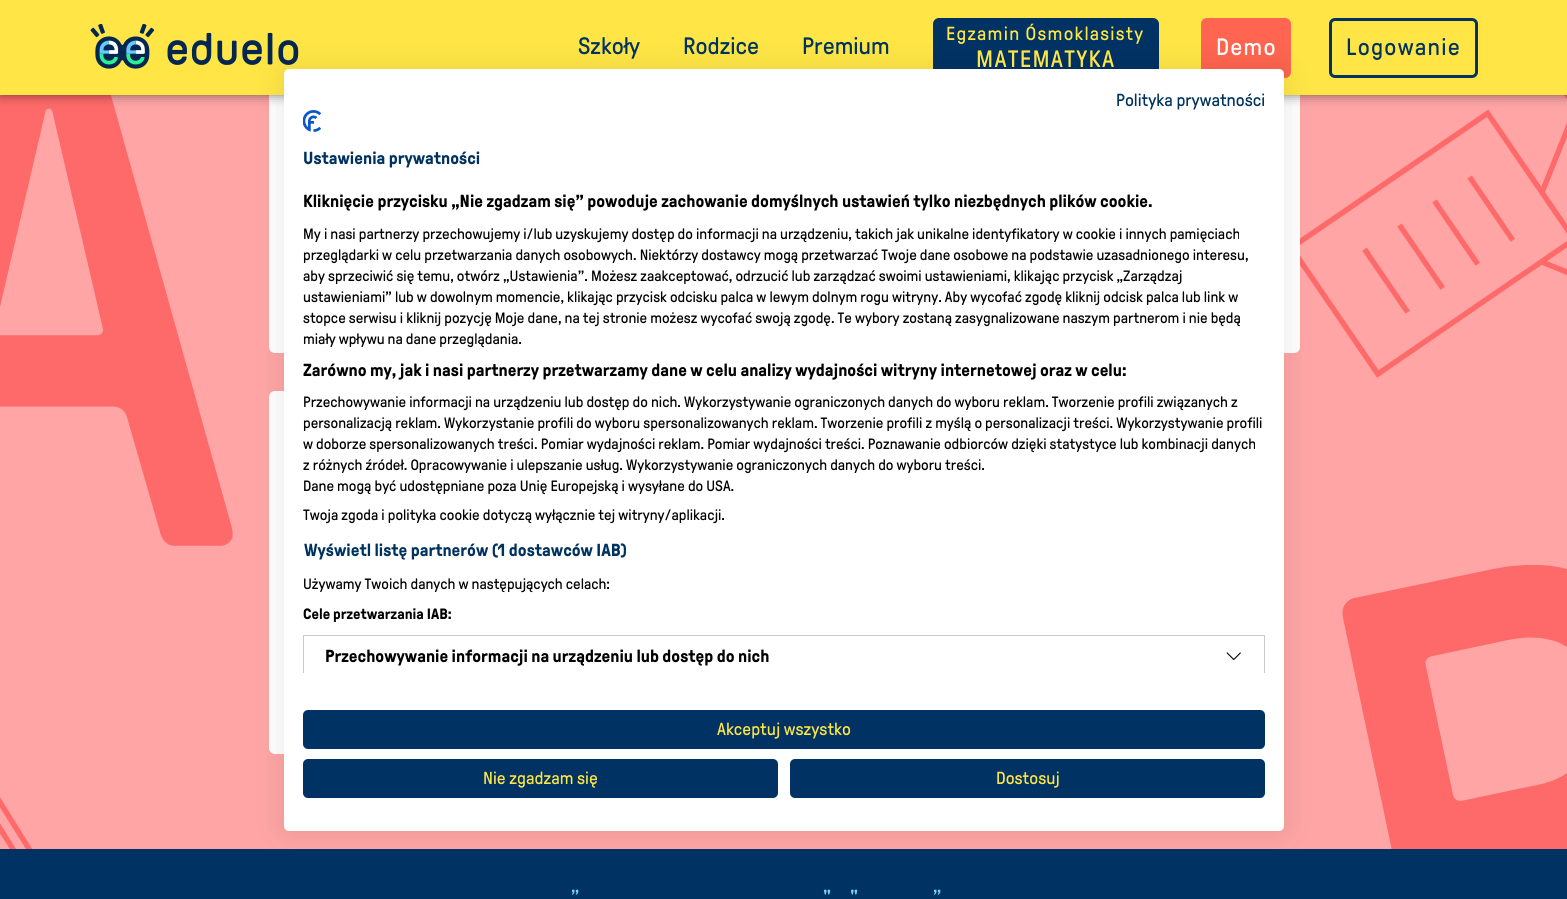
import math
import cairo



def draw_spaced(context, x, y, s, letter, word):
    context.move_to(x, y)
    for ch in s:
        context.show_text(ch)
        context.rel_move_to(letter + word * (ch == ' '), 0)


def rounded_rect(context, x, y, w, h, r):
    context.new_sub_path()
    for i, (u, v) in enumerate([(x + w - r, y + h - r), (x + r, y + h - r), (x + r, y + r), (x + w - r, y + r)]):
        context.arc(u, v, r, i * math.pi / 2, (i + 1) * math.pi / 2)
    context.close_path()


def draw_shadow(context, x, y, w, h, r, blur, alpha):
    context.push_group_with_content(cairo.Content.ALPHA)
    context.set_operator(cairo.Operator.SOURCE)
    for i in range(15, -16, -2):
        e = blur * i / 6
        if min(w, h) + 2 * e > 0:
            context.set_source_rgba(0, 0, 0, alpha * math.erfc((i - 1) / 8.5) / 2)
            rounded_rect(context, x - e, y - e, w + 2 * e, h + 2 * e, max(0, min(r + e + blur * .6, min(w, h) / 2 + e)))
            context.fill()
    context.mask(context.pop_group())


def draw_image(context, path, x, y, w, h):
    context.save()
    context.set_source_surface(cairo.ImageSurface.create_from_png(path), x, y)
    context.rectangle(x, y, w, h)
    context.fill()
    context.restore()


def draw(context):
    context.set_source_rgb(1, 165 / 255, 165 / 255)
    context.paint()
    draw_image(context, "images/1.png", 0, 95, 1567, 754)
    context.set_source_rgb(1, 1, 1)
    rounded_rect(context, 269, -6, 229, 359, 6)
    context.fill()
    rounded_rect(context, 1070, -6, 230, 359, 6)
    context.fill()
    rounded_rect(context, 269, 391, 229, 363, 6)
    context.fill()
    context.set_source_rgb(0, 0, 0)
    draw_shadow(context, 0, 0, 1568, 95, 0, 6, 0.5)
    context.set_source_rgb(1, 230 / 255, 70 / 255)
    context.rectangle(0, 0, 1567, 95)
    context.fill()
    draw_image(context, "images/2.png", 90, 24, 209, 45)
    context.set_source_rgb(0, 50 / 255, 100 / 255)
    rounded_rect(context, 933, 18, 226, 60, 6)
    context.fill()
    context.set_source_rgb(1, 101 / 255, 80 / 255)
    rounded_rect(context, 1201, 18, 90, 60, 6)
    context.fill()
    rounded_rect(context, 1330.5, 19.5, 146, 57, 4.5)
    context.set_source_rgb(0, 50 / 255, 100 / 255)
    context.set_line_width(3)
    context.stroke()
    context.rectangle(0, 849, 1567, 50)
    context.fill()
    context.set_source_rgb(0, 0, 0)
    draw_shadow(context, 284, 69, 1000, 762, 5, 15, 0.1)
    context.set_source_rgb(1, 1, 1)
    rounded_rect(context, 284, 69, 1000, 762, 5)
    context.fill()
    draw_image(context, "images/3.png", 303, 110, 18, 22)
    context.save()
    context.rectangle(284, 110, 1000, 563)
    context.clip()
    context.rectangle(303.5, 635.5, 961, 43)
    context.set_source_rgb(204 / 255, 204 / 255, 204 / 255)
    context.set_line_width(1)
    context.stroke()
    context.restore()
    draw_image(context, "images/4.png", 1226, 652, 15, 8)
    context.set_source_rgb(0, 50 / 255, 100 / 255)
    rounded_rect(context, 303, 710, 962, 39, 5)
    context.fill()
    rounded_rect(context, 303, 759, 475, 39, 5)
    context.fill()
    rounded_rect(context, 790, 759, 475, 39, 5)
    context.fill()
    context.select_font_face("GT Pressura")
    context.set_font_size(23.75)
    context.set_source_rgb(0, 50 / 255, 95 / 255)
    context.move_to(578, 54)
    context.show_text("Szkoły")
    context.move_to(683, 54)
    context.show_text("Rodzice")
    context.move_to(802, 54)
    context.show_text("Premium")
    context.set_font_size(19)
    context.set_source_rgb(1, 230 / 255, 70 / 255)
    draw_spaced(context, 946, 40, "Egzamin Ósmoklasisty", 1.25, 0)
    context.set_font_size(23.75)
    draw_spaced(context, 976, 67, "MATEMATYKA", 1.25, 0)
    context.set_source_rgb(1, 1, 1)
    draw_spaced(context, 1216, 55, "Demo", 1.25, 0)
    context.set_source_rgb(0, 50 / 255, 95 / 255)
    draw_spaced(context, 1346, 55, "Logowanie", 1.25, 0)
    context.set_font_size(19)
    context.set_source_rgb(116 / 255, 209 / 255, 254 / 255)
    context.move_to(571, 903)
    context.show_text("”")
    context.move_to(823, 903)
    context.show_text("\"")
    context.move_to(850, 903)
    context.show_text("\"")
    context.move_to(933, 903)
    context.show_text("”")
    context.set_font_size(17.5)
    context.set_source_rgb(0, 50 / 255, 95 / 255)
    context.move_to(1116, 106)
    context.show_text("Polityka prywatności")
    context.select_font_face("GT Pressura", cairo.FontSlant.NORMAL, cairo.FontWeight.BOLD)
    context.move_to(303, 164)
    context.show_text("Ustawienia prywatności")
    context.set_source_rgb(0, 0, 0)
    context.move_to(303, 207)
    context.show_text("Kliknięcie przycisku „Nie zgadzam się” powoduje zachowanie domyślnych ustawień tylko niezbędnych plików cookie.")
    context.select_font_face("GT Pressura")
    context.set_font_size(15)
    context.move_to(303, 239)
    context.show_text("My i nasi partnerzy przechowujemy i/lub uzyskujemy dostęp do informacji na urządzeniu, takich jak unikalne identyfikatory w cookie i innych pamięciach")
    context.move_to(303, 260)
    context.show_text("przeglądarki w celu przetwarzania danych osobowych. Niektórzy dostawcy mogą przetwarzać Twoje dane osobowe na podstawie uzasadnionego interesu,")
    context.move_to(303, 281)
    context.show_text("aby sprzeciwić się temu, otwórz „Ustawienia”. Możesz zaakceptować, odrzucić lub zarządzać swoimi ustawieniami, klikając przycisk „Zarządzaj")
    context.move_to(303, 302)
    context.show_text("ustawieniami” lub w dowolnym momencie, klikając przycisk odcisku palca w lewym dolnym rogu witryny. Aby wycofać zgodę kliknij odcisk palca lub link w")
    context.move_to(303, 323)
    context.show_text("stopce serwisu i kliknij pozycję Moje dane, na tej stronie możesz wycofać swoją zgodę. Te wybory zostaną zasygnalizowane naszym partnerom i nie będą")
    context.move_to(303, 344)
    context.show_text("miały wpływu na dane przeglądania.")
    context.select_font_face("GT Pressura", cairo.FontSlant.NORMAL, cairo.FontWeight.BOLD)
    context.set_font_size(17.5)
    context.move_to(303, 376)
    context.show_text("Zarówno my, jak i nasi partnerzy przetwarzamy dane w celu analizy wydajności witryny internetowej oraz w celu:")
    context.select_font_face("GT Pressura")
    context.set_font_size(15)
    context.move_to(303, 407)
    context.show_text("Przechowywanie informacji na urządzeniu lub dostęp do nich. Wykorzystywanie ograniczonych danych do wyboru reklam. Tworzenie profili związanych z")
    context.move_to(303, 428)
    context.show_text("personalizacją reklam. Wykorzystanie profili do wyboru spersonalizowanych reklam. Tworzenie profili z myślą o personalizacji treści. Wykorzystywanie profili")
    context.move_to(303, 449)
    context.show_text("w doborze spersonalizowanych treści. Pomiar wydajności reklam. Pomiar wydajności treści. Poznawanie odbiorców dzięki statystyce lub kombinacji danych")
    context.move_to(303, 470)
    context.show_text("z różnych źródeł. Opracowywanie i ulepszanie usług. Wykorzystywanie ograniczonych danych do wyboru treści.")
    context.move_to(303, 491)
    context.show_text("Dane mogą być udostępniane poza Unię Europejską i wysyłane do USA.")
    context.move_to(303, 520)
    context.show_text("Twoja zgoda i polityka cookie dotyczą wyłącznie tej witryny/aplikacji.")
    context.select_font_face("GT Pressura", cairo.FontSlant.NORMAL, cairo.FontWeight.BOLD)
    context.set_font_size(17.5)
    context.set_source_rgb(0, 50 / 255, 95 / 255)
    context.move_to(304, 556)
    context.show_text("Wyświetl listę partnerów (1 dostawców IAB)")
    context.select_font_face("GT Pressura")
    context.set_font_size(15)
    context.set_source_rgb(0, 0, 0)
    context.move_to(303, 589)
    context.show_text("Używamy Twoich danych w następujących celach:")
    context.select_font_face("GT Pressura", cairo.FontSlant.NORMAL, cairo.FontWeight.BOLD)
    context.move_to(303, 619)
    context.show_text("Cele przetwarzania IAB:")
    context.set_font_size(17.5)
    context.move_to(325, 662)
    context.show_text("Przechowywanie informacji na urządzeniu lub dostęp do nich")
    context.select_font_face("GT Pressura")
    context.set_source_rgb(1, 230 / 255, 70 / 255)
    context.move_to(717, 735)
    context.show_text("Akceptuj wszystko")
    context.move_to(483, 784)
    context.show_text("Nie zgadzam się")
    context.move_to(996, 784)
    context.show_text("Dostosuj")


surface = cairo.ImageSurface(cairo.Format.RGB24, 1567, 899)
context = cairo.Context(surface)
options = cairo.FontOptions()
options.set_hint_metrics(cairo.HintMetrics.OFF)
options.set_hint_style(cairo.HintStyle.NONE)
context.set_font_options(options)
context.set_miter_limit(4)
draw(context)
surface.write_to_png("out.png")
